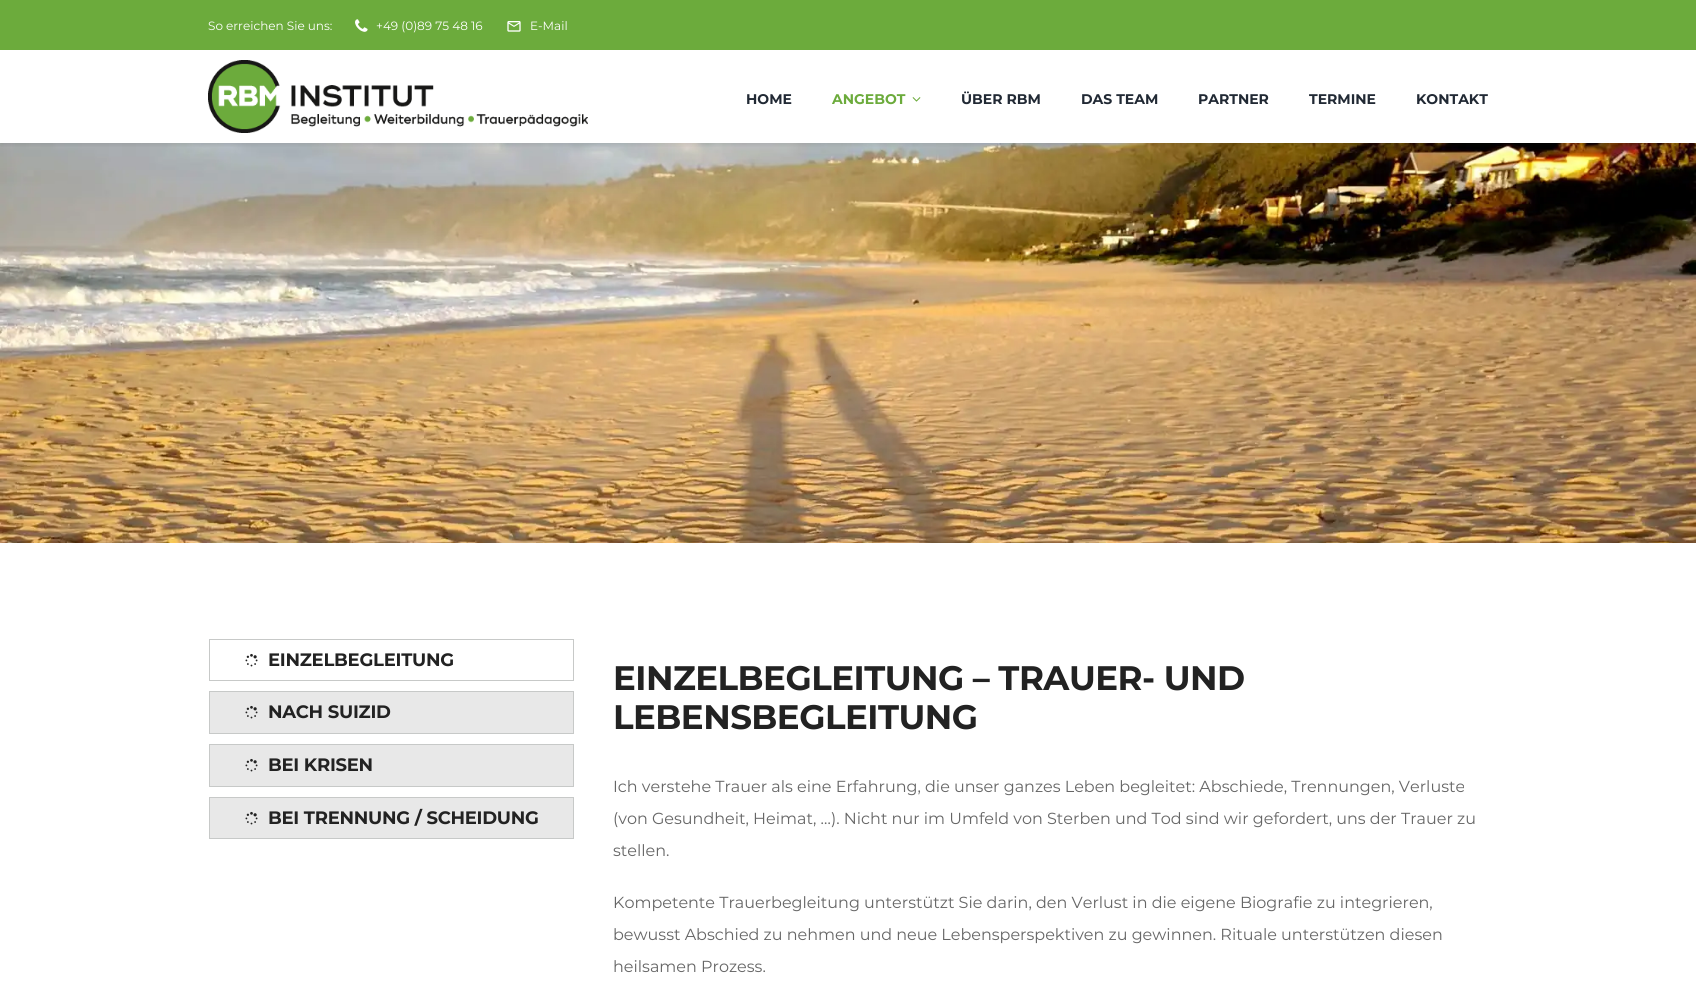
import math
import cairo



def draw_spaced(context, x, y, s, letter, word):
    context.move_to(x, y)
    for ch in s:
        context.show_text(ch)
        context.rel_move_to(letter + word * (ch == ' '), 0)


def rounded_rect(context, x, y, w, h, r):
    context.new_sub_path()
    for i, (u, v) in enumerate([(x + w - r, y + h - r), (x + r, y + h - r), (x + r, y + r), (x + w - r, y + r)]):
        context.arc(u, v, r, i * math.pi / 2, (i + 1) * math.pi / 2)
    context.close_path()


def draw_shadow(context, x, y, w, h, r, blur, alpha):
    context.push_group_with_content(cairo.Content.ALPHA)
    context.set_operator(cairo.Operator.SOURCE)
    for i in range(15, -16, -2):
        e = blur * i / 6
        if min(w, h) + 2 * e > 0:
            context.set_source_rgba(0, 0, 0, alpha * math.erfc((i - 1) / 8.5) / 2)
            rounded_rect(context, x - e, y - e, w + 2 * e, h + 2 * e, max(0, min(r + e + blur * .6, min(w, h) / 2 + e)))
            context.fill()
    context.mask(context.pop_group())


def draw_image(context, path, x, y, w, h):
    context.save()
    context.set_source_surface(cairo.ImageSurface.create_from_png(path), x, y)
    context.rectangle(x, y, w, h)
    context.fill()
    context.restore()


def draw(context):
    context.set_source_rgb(1, 1, 1)
    context.paint()
    context.set_source_rgb(108 / 255, 171 / 255, 60 / 255)
    context.rectangle(0, 0, 1696, 50)
    context.fill()
    draw_image(context, "images/1.png", 355, 19, 13, 13)
    draw_image(context, "images/2.png", 507, 21, 14, 11)
    draw_image(context, "images/5.png", 0, 143, 1696, 400)
    context.save()
    context.rectangle(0, 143, 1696, 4)
    context.clip()
    context.set_source_rgb(33 / 255, 33 / 255, 33 / 255)
    draw_shadow(context, 0, 52, 1696, 93, 0, 2.5, 0.1)
    context.restore()
    draw_image(context, "images/3.png", 208, 60, 380, 73)
    draw_image(context, "images/4.png", 912, 97, 9, 5)
    context.rectangle(209.5, 639.5, 364, 41)
    context.set_source_rgb(199 / 255, 201 / 255, 200 / 255)
    context.set_line_width(1)
    context.stroke()
    draw_image(context, "images/6.png", 245, 653, 13, 14)
    context.set_source_rgb(232 / 255, 232 / 255, 232 / 255)
    context.rectangle(209.5, 691.5, 364, 42)
    context.fill_preserve()
    context.set_source_rgb(199 / 255, 201 / 255, 200 / 255)
    context.stroke()
    draw_image(context, "images/7.png", 245, 705, 13, 14)
    context.set_source_rgb(232 / 255, 232 / 255, 232 / 255)
    context.rectangle(209.5, 744.5, 364, 42)
    context.fill_preserve()
    context.set_source_rgb(199 / 255, 201 / 255, 200 / 255)
    context.stroke()
    draw_image(context, "images/7.png", 245, 758, 13, 14)
    context.set_source_rgb(232 / 255, 232 / 255, 232 / 255)
    context.rectangle(209.5, 797.5, 364, 41)
    context.fill_preserve()
    context.set_source_rgb(199 / 255, 201 / 255, 200 / 255)
    context.stroke()
    draw_image(context, "images/7.png", 245, 811, 13, 14)
    context.select_font_face("Montserrat")
    context.set_font_size(12)
    context.set_source_rgb(1, 1, 1)
    context.move_to(208, 30)
    context.show_text("So erreichen Sie uns:")
    context.move_to(376, 30)
    context.show_text("+49 (0)89 75 48 16")
    context.move_to(530, 30)
    context.show_text("E-Mail")
    context.select_font_face("Montserrat", cairo.FontSlant.NORMAL, cairo.FontWeight.BOLD)
    context.set_font_size(14)
    context.set_source_rgb(33 / 255, 41 / 255, 52 / 255)
    context.move_to(746, 104)
    context.show_text("HOME")
    context.set_source_rgb(108 / 255, 171 / 255, 60 / 255)
    context.move_to(832, 104)
    context.show_text("ANGEBOT")
    context.set_source_rgb(33 / 255, 41 / 255, 52 / 255)
    context.move_to(961, 104)
    context.show_text("ÜBER RBM")
    context.move_to(1081, 104)
    context.show_text("DAS TEAM")
    context.move_to(1198, 104)
    context.show_text("PARTNER")
    context.move_to(1309, 104)
    context.show_text("TERMINE")
    context.move_to(1416, 104)
    context.show_text("KONTAKT")
    context.set_font_size(18)
    context.set_source_rgb(34 / 255, 34 / 255, 34 / 255)
    draw_spaced(context, 268, 666, "EINZELBEGLEITUNG", -0.25, 0)
    draw_spaced(context, 268, 718, "NACH SUIZID", -0.25, 0)
    draw_spaced(context, 268, 771, "BEI KRISEN", -0.25, 0)
    draw_spaced(context, 268, 824, "BEI TRENNUNG / SCHEIDUNG", -0.25, 0)
    context.set_font_size(34)
    draw_spaced(context, 613, 690, "EINZELBEGLEITUNG – TRAUER- UND", -0.5, 0)
    draw_spaced(context, 613, 729, "LEBENSBEGLEITUNG", -0.5, 0)
    context.select_font_face("Montserrat")
    context.set_font_size(16)
    context.set_source_rgb(102 / 255, 102 / 255, 102 / 255)
    context.move_to(613, 792)
    context.show_text("Ich verstehe Trauer als eine Erfahrung, die unser ganzes Leben begleitet: Abschiede, Trennungen, Verluste")
    context.move_to(613, 824)
    context.show_text("(von Gesundheit, Heimat, …). Nicht nur im Umfeld von Sterben und Tod sind wir gefordert, uns der Trauer zu")
    context.move_to(613, 856)
    context.show_text("stellen.")
    context.move_to(613, 908)
    context.show_text("Kompetente Trauerbegleitung unterstützt Sie darin, den Verlust in die eigene Biografie zu integrieren,")
    context.move_to(613, 940)
    context.show_text("bewusst Abschied zu nehmen und neue Lebensperspektiven zu gewinnen. Rituale unterstützen diesen")
    context.move_to(613, 972)
    context.show_text("heilsamen Prozess.")


surface = cairo.ImageSurface(cairo.Format.RGB24, 1696, 981)
context = cairo.Context(surface)
options = cairo.FontOptions()
options.set_hint_metrics(cairo.HintMetrics.OFF)
options.set_hint_style(cairo.HintStyle.NONE)
context.set_font_options(options)
context.set_miter_limit(4)
draw(context)
surface.write_to_png("out.png")
